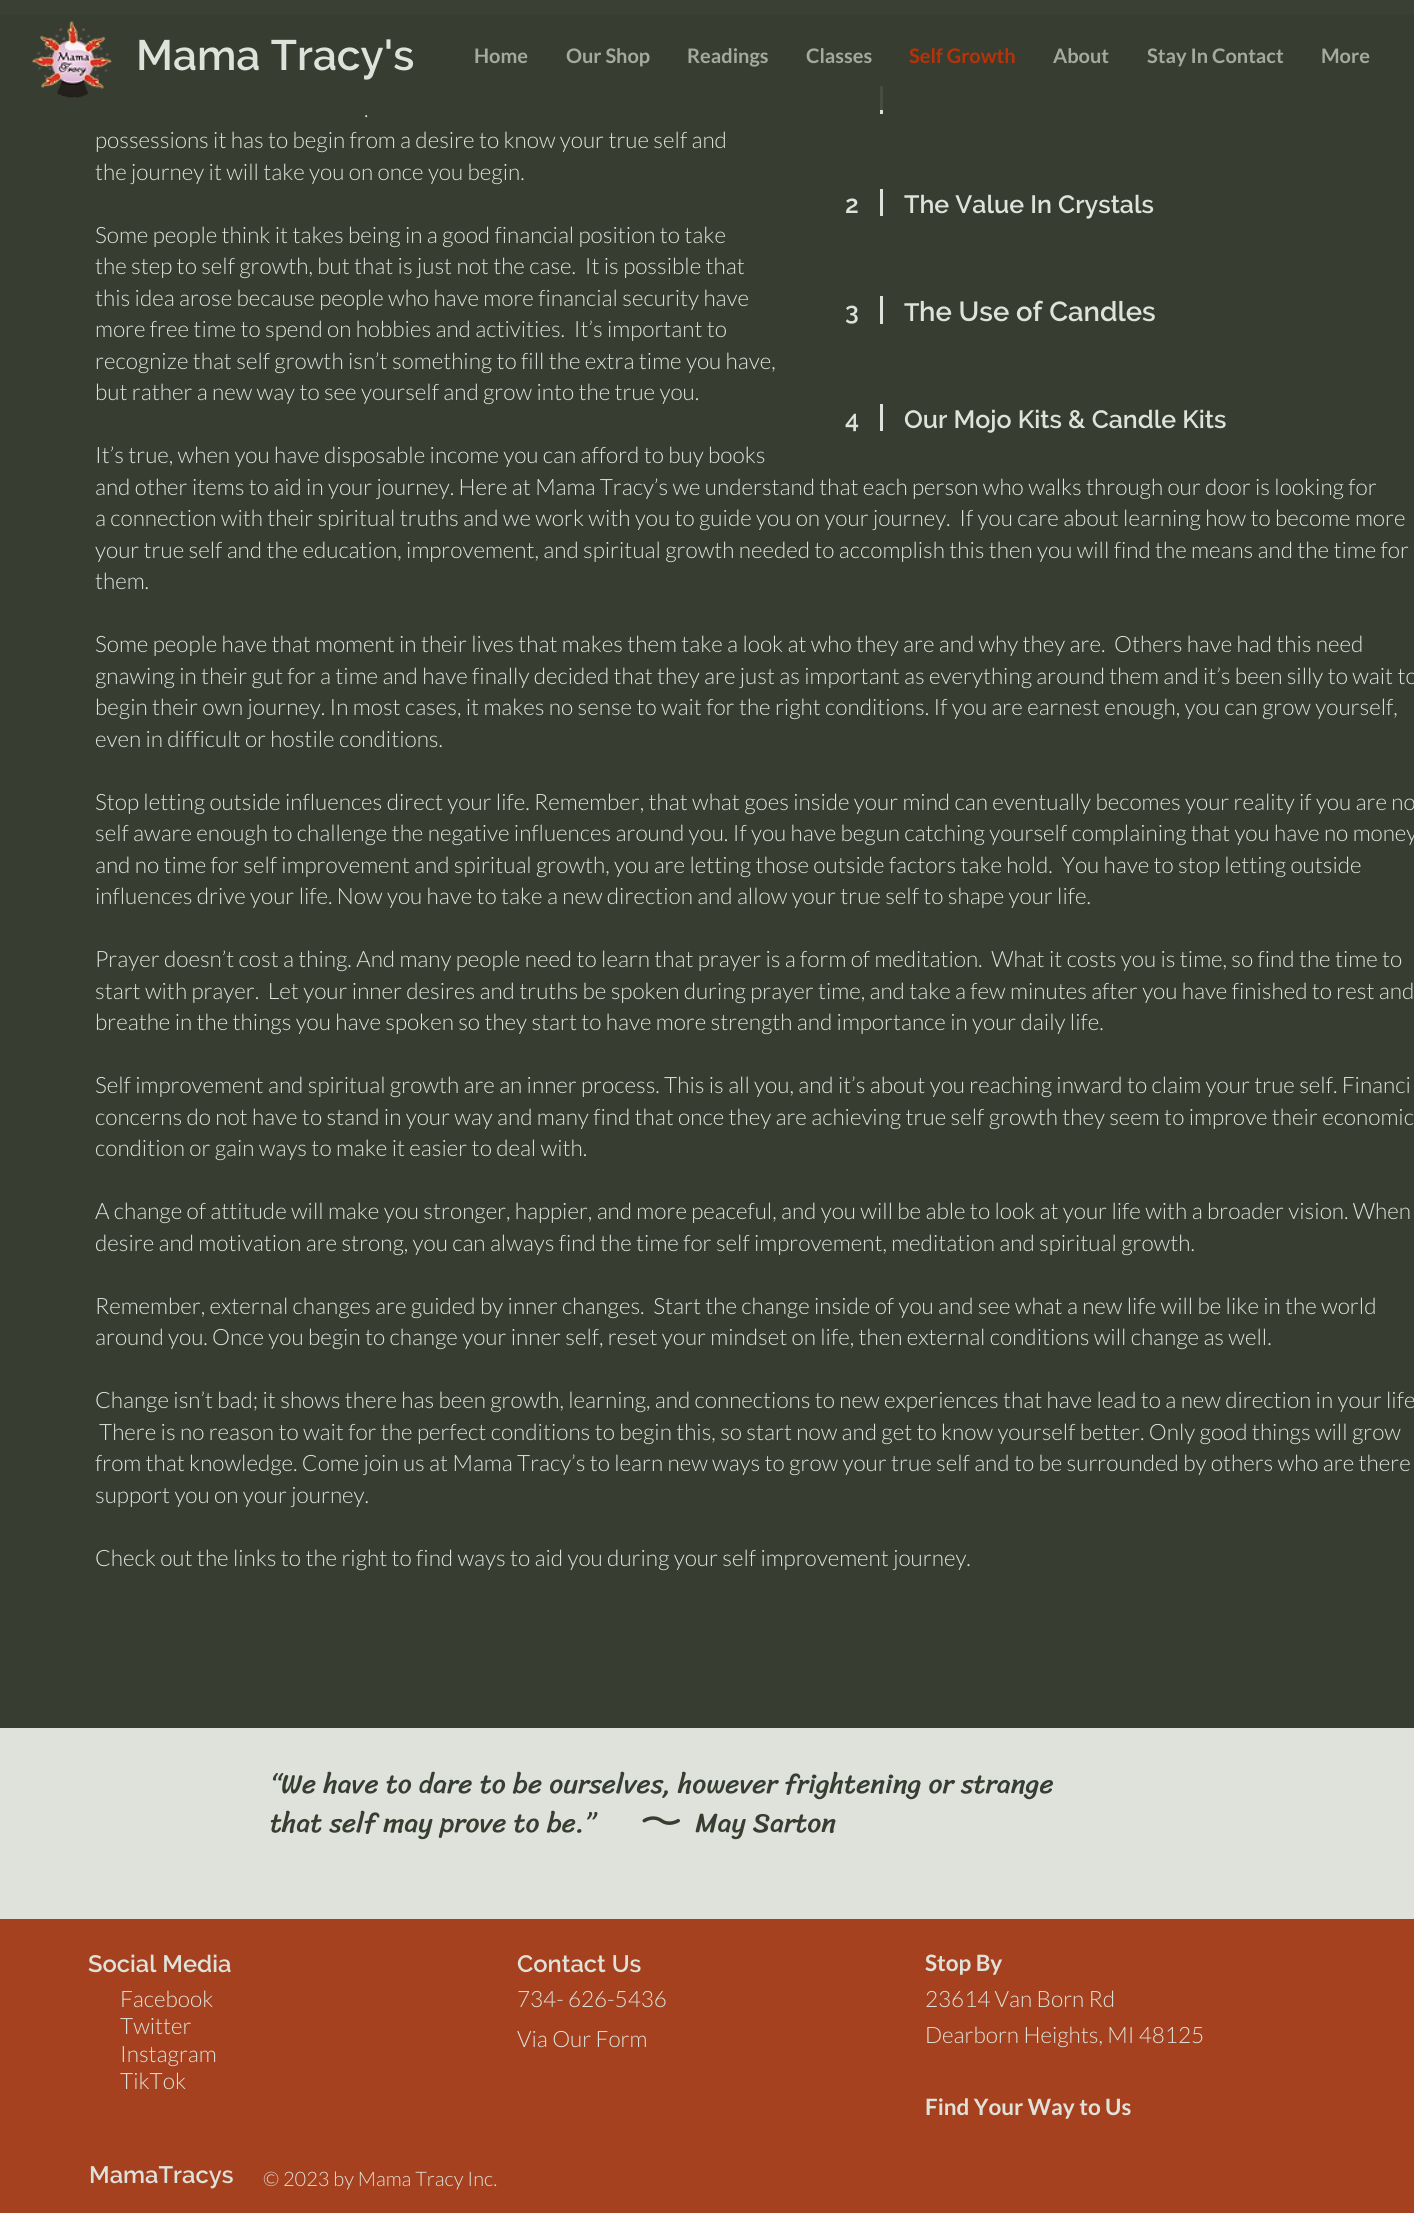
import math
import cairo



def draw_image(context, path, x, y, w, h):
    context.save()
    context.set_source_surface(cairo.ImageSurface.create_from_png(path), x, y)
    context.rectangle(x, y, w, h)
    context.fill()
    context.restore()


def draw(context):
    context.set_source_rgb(56 / 255, 61 / 255, 49 / 255)
    context.paint()
    context.set_source_rgb(83 / 255, 87 / 255, 76 / 255)
    context.rectangle(0, 0, 1414, 15)
    context.fill()
    context.set_source_rgb(222 / 255, 226 / 255, 218 / 255)
    context.rectangle(880, 86, 3, 28)
    context.fill()
    context.set_source_rgba(56 / 255, 61 / 255, 49 / 255, 0.9)
    context.rectangle(0, 0, 1414, 110)
    context.fill()
    draw_image(context, "images/1.png", 32, 21, 80, 77)
    context.set_source_rgb(222 / 255, 226 / 255, 218 / 255)
    context.rectangle(880, 189, 3, 27)
    context.fill()
    context.rectangle(880, 296, 3, 28)
    context.fill()
    context.rectangle(880, 404, 3, 27)
    context.fill()
    context.rectangle(0, 1728, 1414, 191)
    context.fill()
    context.set_source_rgb(166 / 255, 65 / 255, 31 / 255)
    context.rectangle(0, 1919, 1414, 294)
    context.fill()
    context.select_font_face("Raleway SemiBold")
    context.set_font_size(42.5)
    context.set_source_rgb(222 / 255, 226 / 255, 218 / 255)
    context.move_to(136, 70)
    context.show_text("Mama Tracy's")
    context.select_font_face("Lato", cairo.FontSlant.NORMAL, cairo.FontWeight.BOLD)
    context.set_font_size(20)
    context.set_source_rgb(164 / 255, 171 / 255, 157 / 255)
    context.move_to(474, 63)
    context.show_text("Home")
    context.move_to(566, 63)
    context.show_text("Our Shop")
    context.move_to(687, 63)
    context.show_text("Readings")
    context.move_to(806, 63)
    context.show_text("Classes")
    context.set_source_rgb(184 / 255, 50 / 255, 6 / 255)
    context.move_to(909, 63)
    context.show_text("Self Growth")
    context.set_source_rgb(164 / 255, 171 / 255, 157 / 255)
    context.move_to(1053, 63)
    context.show_text("About")
    context.move_to(1147, 63)
    context.show_text("Stay In Contact")
    context.move_to(1321, 63)
    context.show_text("More")
    context.select_font_face("Lato Light")
    context.set_font_size(22.5)
    context.set_source_rgb(222 / 255, 226 / 255, 218 / 255)
    context.move_to(364, 117)
    context.show_text(".")
    context.move_to(95, 148)
    context.show_text("possessions it has to begin from a desire to know your true self and")
    context.move_to(95, 180)
    context.show_text("the journey it will take you on once you begin.")
    context.move_to(95, 243)
    context.show_text("Some people think it takes being in a good financial position to take")
    context.move_to(95, 274)
    context.show_text("the step to self growth, but that is just not the case.  It is possible that")
    context.move_to(95, 306)
    context.show_text("this idea arose because people who have more financial security have")
    context.move_to(95, 337)
    context.show_text("more free time to spend on hobbies and activities.  It’s important to")
    context.move_to(95, 369)
    context.show_text("recognize that self growth isn’t something to fill the extra time you have,")
    context.move_to(95, 400)
    context.show_text("but rather a new way to see yourself and grow into the true you.")
    context.move_to(95, 463)
    context.show_text("It’s true, when you have disposable income you can afford to buy books")
    context.move_to(95, 495)
    context.show_text("and other items to aid in your journey. Here at Mama Tracy’s we understand that each person who walks through our door is looking for")
    context.move_to(95, 526)
    context.show_text("a connection with their spiritual truths and we work with you to guide you on your journey.  If you care about learning how to become more")
    context.move_to(95, 558)
    context.show_text("your true self and the education, improvement, and spiritual growth needed to accomplish this then you will find the means and the time for")
    context.move_to(95, 589)
    context.show_text("them.")
    context.move_to(95, 652)
    context.show_text("Some people have that moment in their lives that makes them take a look at who they are and why they are.  Others have had this need")
    context.move_to(95, 684)
    context.show_text("gnawing in their gut for a time and have finally decided that they are just as important as everything around them and it’s been silly to wait to")
    context.move_to(95, 715)
    context.show_text("begin their own journey. In most cases, it makes no sense to wait for the right conditions. If you are earnest enough, you can grow yourself,")
    context.move_to(95, 747)
    context.show_text("even in difficult or hostile conditions.")
    context.move_to(95, 810)
    context.show_text("Stop letting outside influences direct your life. Remember, that what goes inside your mind can eventually becomes your reality if you are no")
    context.move_to(95, 841)
    context.show_text("self aware enough to challenge the negative influences around you. If you have begun catching yourself complaining that you have no money")
    context.move_to(95, 873)
    context.show_text("and no time for self improvement and spiritual growth, you are letting those outside factors take hold.  You have to stop letting outside")
    context.move_to(95, 904)
    context.show_text("influences drive your life. Now you have to take a new direction and allow your true self to shape your life.")
    context.move_to(95, 967)
    context.show_text("Prayer doesn’t cost a thing. And many people need to learn that prayer is a form of meditation.  What it costs you is time, so find the time to")
    context.move_to(95, 999)
    context.show_text("start with prayer.  Let your inner desires and truths be spoken during prayer time, and take a few minutes after you have finished to rest and")
    context.move_to(95, 1030)
    context.show_text("breathe in the things you have spoken so they start to have more strength and importance in your daily life.")
    context.move_to(95, 1093)
    context.show_text("Self improvement and spiritual growth are an inner process. This is all you, and it’s about you reaching inward to claim your true self. Financi")
    context.move_to(95, 1125)
    context.show_text("concerns do not have to stand in your way and many find that once they are achieving true self growth they seem to improve their economic")
    context.move_to(95, 1156)
    context.show_text("condition or gain ways to make it easier to deal with.")
    context.move_to(95, 1219)
    context.show_text("A change of attitude will make you stronger, happier, and more peaceful, and you will be able to look at your life with a broader vision. When")
    context.move_to(95, 1251)
    context.show_text("desire and motivation are strong, you can always find the time for self improvement, meditation and spiritual growth.")
    context.move_to(95, 1314)
    context.show_text("Remember, external changes are guided by inner changes.  Start the change inside of you and see what a new life will be like in the world")
    context.move_to(95, 1345)
    context.show_text("around you. Once you begin to change your inner self, reset your mindset on life, then external conditions will change as well.")
    context.move_to(95, 1408)
    context.show_text("Change isn’t bad; it shows there has been growth, learning, and connections to new experiences that have lead to a new direction in your life")
    context.move_to(99, 1440)
    context.show_text("There is no reason to wait for the perfect conditions to begin this, so start now and get to know yourself better. Only good things will grow")
    context.move_to(95, 1471)
    context.show_text("from that knowledge. Come join us at Mama Tracy’s to learn new ways to grow your true self and to be surrounded by others who are there")
    context.move_to(95, 1503)
    context.show_text("support you on your journey.")
    context.move_to(95, 1566)
    context.show_text("Check out the links to the right to find ways to aid you during your self improvement journey.")
    context.select_font_face("Raleway SemiBold")
    context.set_font_size(25)
    context.move_to(845, 213)
    context.show_text("2")
    context.move_to(904, 213)
    context.show_text("The Value In Crystals")
    context.move_to(845, 320)
    context.show_text("3")
    context.move_to(904, 321)
    context.show_text("T")
    context.set_font_size(27.5)
    context.move_to(919, 321)
    context.show_text("he Use of Candles")
    context.set_font_size(25)
    context.move_to(845, 428)
    context.show_text("4")
    context.move_to(904, 428)
    context.show_text("Our Mojo Kits & Candle Kits")
    context.select_font_face("Sriracha")
    context.set_font_size(27.5)
    context.set_source_rgb(56 / 255, 61 / 255, 49 / 255)
    context.move_to(270, 1793)
    context.show_text("“We have to dare to be ourselves, however frightening or strange")
    context.move_to(270, 1832)
    context.show_text("that self may prove to be.”              May Sarton")
    draw_image(context, "images/2.png", 642, 1816, 38, 9)
    context.select_font_face("Raleway SemiBold")
    context.set_font_size(23.75)
    context.set_source_rgb(222 / 255, 226 / 255, 218 / 255)
    context.move_to(88, 1972)
    context.show_text("Social Media")
    context.select_font_face("Lato Light")
    context.set_font_size(22.5)
    context.move_to(120, 2007)
    context.show_text("Facebook")
    context.move_to(120, 2034)
    context.show_text("Twitter")
    context.move_to(120, 2062)
    context.show_text("Instagram")
    context.move_to(120, 2089)
    context.show_text("TikTok")
    context.select_font_face("Raleway SemiBold")
    context.set_font_size(23.75)
    context.move_to(89, 2183)
    context.show_text("MamaTracys")
    context.select_font_face("Lato Light")
    context.set_font_size(20)
    context.move_to(263, 2186)
    context.show_text("© 2023 by Mama Tracy Inc.")
    context.select_font_face("Raleway SemiBold")
    context.set_font_size(23.75)
    context.move_to(517, 1972)
    context.show_text("Contact Us")
    context.select_font_face("Lato Light")
    context.set_font_size(22.5)
    context.move_to(517, 2007)
    context.show_text("734- 626-5436")
    context.move_to(517, 2047)
    context.show_text("Via Our Form")
    context.select_font_face("Lato", cairo.FontSlant.NORMAL, cairo.FontWeight.BOLD)
    context.move_to(925, 1971)
    context.show_text("Stop By")
    context.select_font_face("Lato Light")
    context.move_to(925, 2007)
    context.show_text("23614 Van Born Rd")
    context.move_to(925, 2043)
    context.show_text("Dearborn Heights, MI 48125")
    context.select_font_face("Lato", cairo.FontSlant.NORMAL, cairo.FontWeight.BOLD)
    context.move_to(925, 2115)
    context.show_text("Find Your Way to Us")


surface = cairo.ImageSurface(cairo.Format.RGB24, 1414, 2213)
context = cairo.Context(surface)
options = cairo.FontOptions()
options.set_hint_metrics(cairo.HintMetrics.OFF)
options.set_hint_style(cairo.HintStyle.NONE)
context.set_font_options(options)
context.set_miter_limit(4)
draw(context)
surface.write_to_png("out.png")
